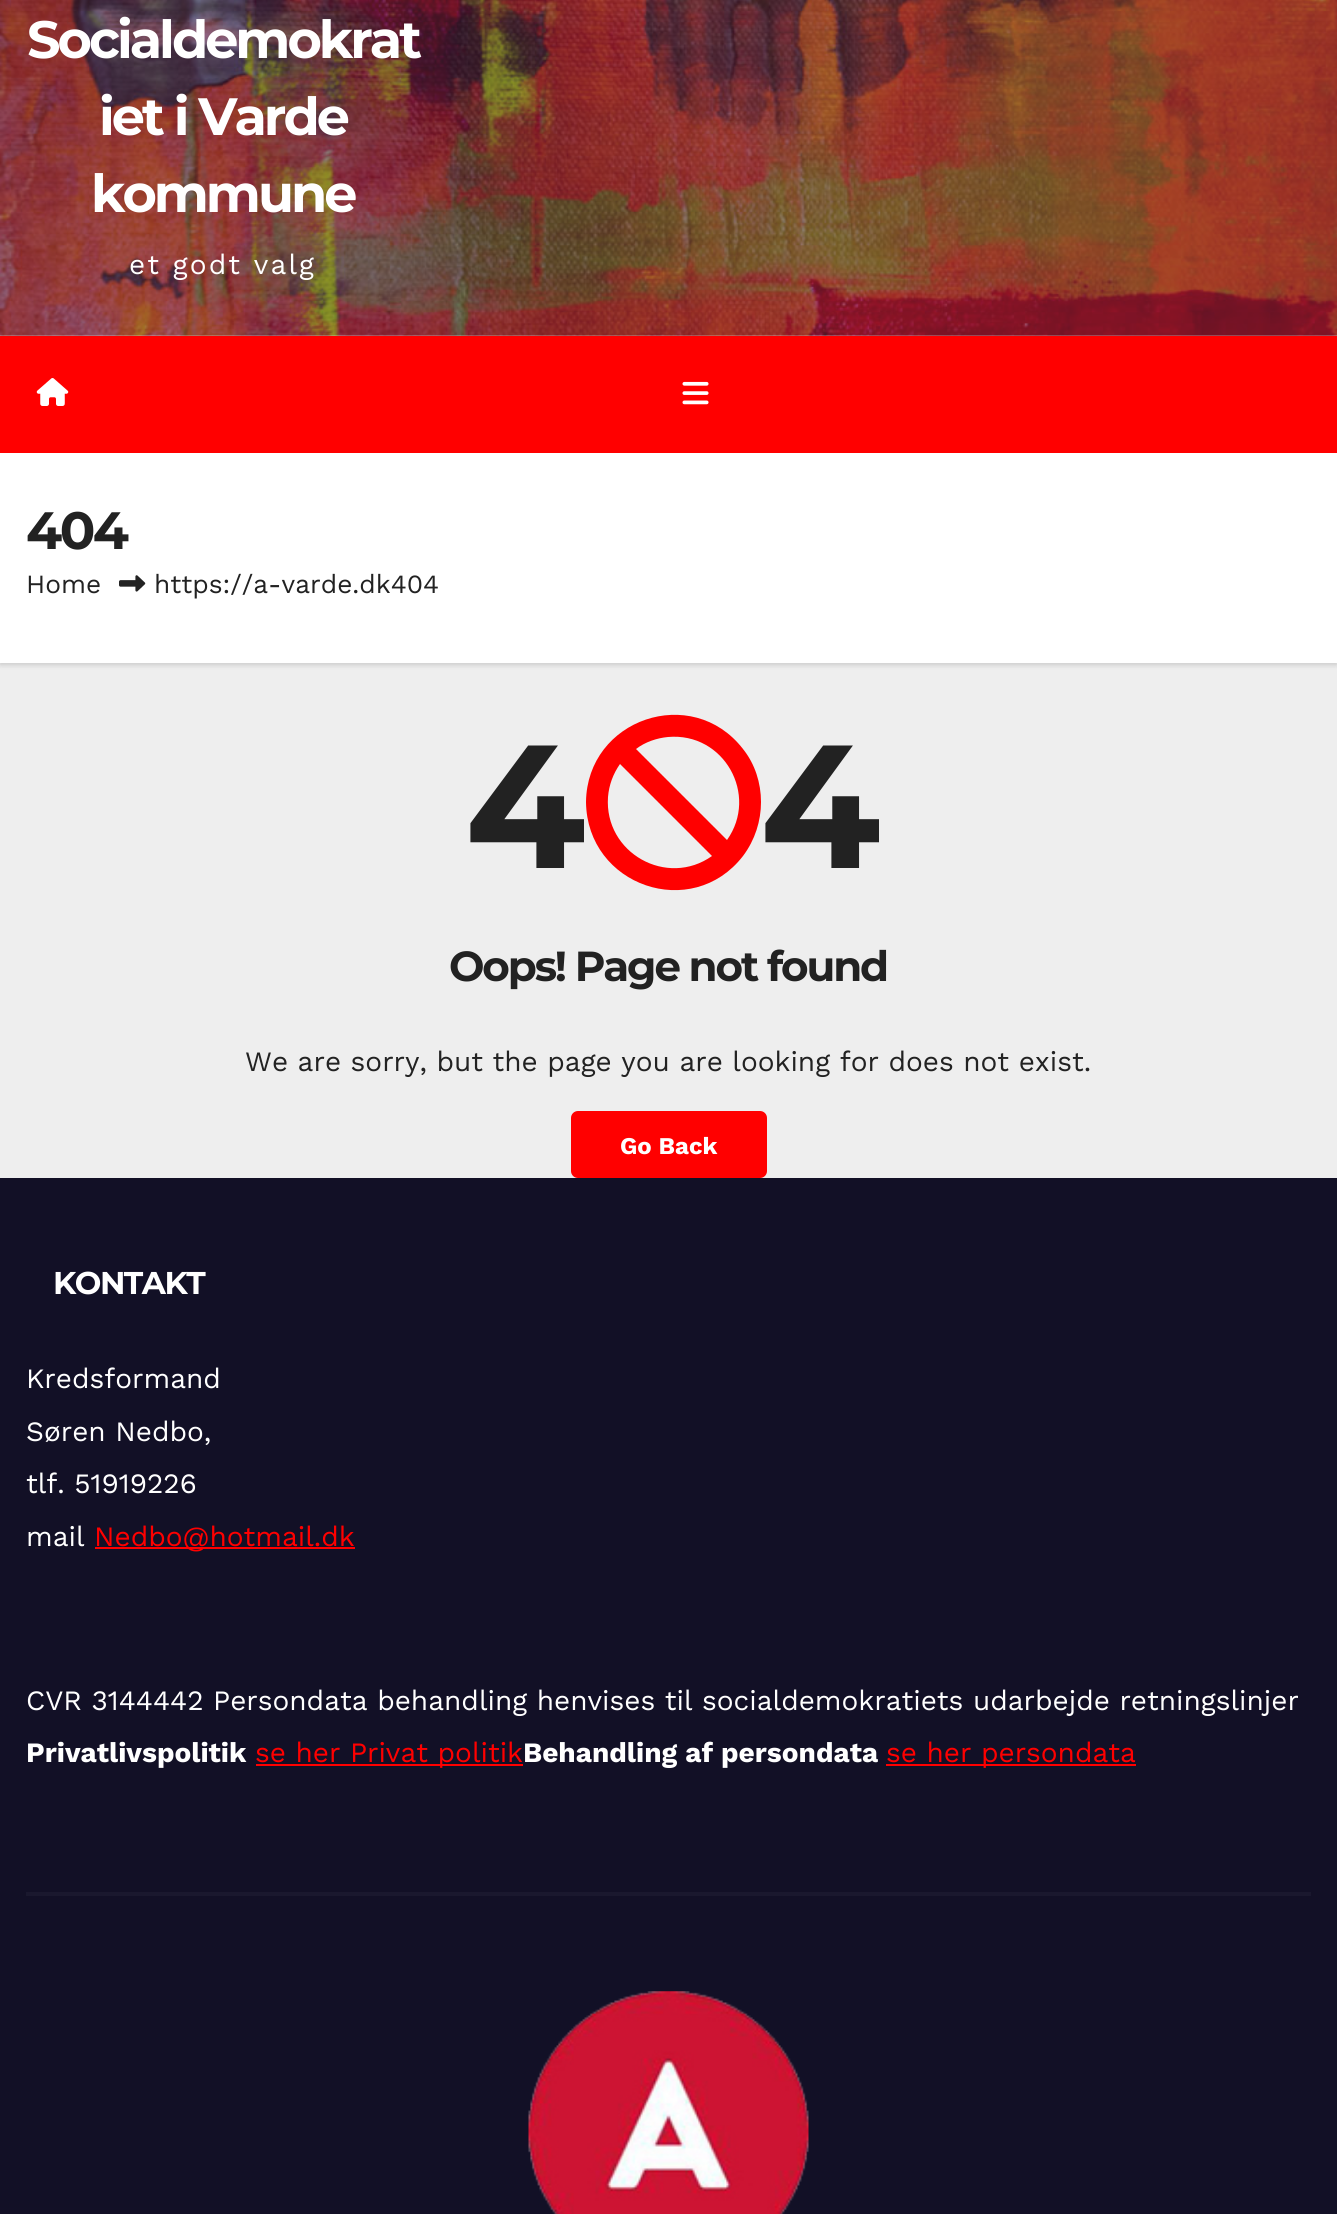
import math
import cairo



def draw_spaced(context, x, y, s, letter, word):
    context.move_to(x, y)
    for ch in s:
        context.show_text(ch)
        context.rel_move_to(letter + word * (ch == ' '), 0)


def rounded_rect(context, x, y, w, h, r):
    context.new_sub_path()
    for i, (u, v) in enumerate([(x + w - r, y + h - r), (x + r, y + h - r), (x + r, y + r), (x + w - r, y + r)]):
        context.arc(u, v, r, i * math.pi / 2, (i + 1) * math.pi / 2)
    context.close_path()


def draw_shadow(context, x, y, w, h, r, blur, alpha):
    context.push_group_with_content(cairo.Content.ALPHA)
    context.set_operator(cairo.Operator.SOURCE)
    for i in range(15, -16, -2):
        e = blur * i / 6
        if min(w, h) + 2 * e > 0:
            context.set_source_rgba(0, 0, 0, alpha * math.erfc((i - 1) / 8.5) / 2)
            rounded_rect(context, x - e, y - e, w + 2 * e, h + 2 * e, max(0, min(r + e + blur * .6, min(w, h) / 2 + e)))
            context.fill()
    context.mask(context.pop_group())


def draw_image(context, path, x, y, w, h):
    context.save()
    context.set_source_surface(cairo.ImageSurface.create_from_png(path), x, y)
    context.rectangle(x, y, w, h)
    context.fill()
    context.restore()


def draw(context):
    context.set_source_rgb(238 / 255, 238 / 255, 238 / 255)
    context.paint()
    draw_image(context, "images/1.png", 0, 0, 1337, 336)
    context.set_source_rgb(0, 0, 0)
    draw_shadow(context, 0, 455, 1337, 210, 0, 2.5, 0.15)
    context.set_source_rgb(1, 0, 0)
    context.rectangle(0, 336, 1337, 117)
    context.fill()
    draw_image(context, "images/2.png", 36, 378, 33, 28)
    draw_image(context, "images/3.png", 682, 381, 27, 24)
    context.set_source_rgb(1, 1, 1)
    context.rectangle(0, 453, 1337, 210)
    context.fill()
    draw_image(context, "images/4.png", 119, 575, 27, 17)
    context.set_source_rgb(1, 0, 0)
    context.new_path()
    context.move_to(712, 856)
    context.line_to(620, 764)
    context.curve_to(613, 774, 609, 785, 608, 797)
    context.curve_to(604, 853, 667, 888, 712, 856)
    context.close_path()
    context.move_to(727, 840)
    context.curve_to(759, 795, 724, 732, 668, 737)
    context.curve_to(657, 738, 645, 742, 636, 749)
    context.close_path()
    context.move_to(586, 802)
    context.curve_to(587, 719, 692, 683, 743, 749)
    context.curve_to(755, 764, 761, 783, 761, 802)
    context.curve_to(761, 821, 755, 840, 743, 856)
    context.curve_to(692, 922, 587, 886, 586, 802)
    context.close_path()
    context.fill()
    rounded_rect(context, 573, 1113, 192, 63, 5)
    context.fill_preserve()
    context.set_line_width(4)
    context.stroke()
    context.set_source_rgb(18 / 255, 16 / 255, 38 / 255)
    context.rectangle(0, 1178, 1337, 1036)
    context.fill()
    context.set_source_rgb(1, 0, 0)
    context.rectangle(95, 1547, 260, 2)
    context.fill()
    context.rectangle(256, 1764, 267, 2)
    context.fill()
    context.rectangle(886, 1764, 250, 2)
    context.fill()
    context.set_source_rgb(26 / 255, 24 / 255, 46 / 255)
    context.rectangle(26, 1892, 1285, 4)
    context.fill()
    draw_image(context, "images/5.png", 528, 1991, 281, 223)
    context.select_font_face("Montserrat", cairo.FontSlant.NORMAL, cairo.FontWeight.BOLD)
    context.set_font_size(52.5)
    context.set_source_rgb(1, 1, 1)
    draw_spaced(context, 27, 58, "Socialdemokrat", -3, 0)
    draw_spaced(context, 99, 135, "iet i Varde", -3, 0)
    draw_spaced(context, 91, 212, "kommune", -3, 0)
    context.select_font_face("Work Sans")
    context.set_font_size(28)
    draw_spaced(context, 129, 274, "et godt valg", 2.1, 0)
    context.select_font_face("Montserrat", cairo.FontSlant.NORMAL, cairo.FontWeight.BOLD)
    context.set_font_size(52.5)
    context.set_source_rgb(34 / 255, 34 / 255, 34 / 255)
    draw_spaced(context, 26, 549, "404", -2.5, 0)
    context.select_font_face("Work Sans")
    context.set_font_size(26.25)
    context.move_to(26, 593)
    context.show_text("Home")
    context.move_to(154, 593)
    context.show_text("https://a-varde.dk404")
    context.select_font_face("Montserrat", cairo.FontSlant.NORMAL, cairo.FontWeight.BOLD)
    context.set_font_size(175)
    draw_spaced(context, 465, 868, "4", -9, 0)
    draw_spaced(context, 760, 868, "4", -9, 0)
    context.set_font_size(42)
    draw_spaced(context, 449, 981, "Oops! Page not found", -2.1, 0)
    context.select_font_face("Work Sans")
    context.set_font_size(28)
    context.move_to(245, 1071)
    context.show_text("We are sorry, but the page you are looking for does not exist.")
    context.select_font_face("Work Sans", cairo.FontSlant.NORMAL, cairo.FontWeight.BOLD)
    context.set_font_size(24)
    context.set_source_rgb(1, 1, 1)
    context.move_to(620, 1154)
    context.show_text("Go Back")
    context.select_font_face("Montserrat", cairo.FontSlant.NORMAL, cairo.FontWeight.BOLD)
    context.set_font_size(31.5)
    draw_spaced(context, 53, 1294, "KONTAKT", -1.5, 0)
    context.select_font_face("Work Sans")
    context.set_font_size(28)
    context.move_to(26, 1388)
    context.show_text("Kredsformand")
    context.move_to(26, 1441)
    context.show_text("Søren Nedbo,")
    context.move_to(26, 1493)
    context.show_text("tlf. 51919226")
    context.move_to(26, 1546)
    context.show_text("mail")
    context.set_source_rgb(1, 0, 0)
    context.move_to(94, 1546)
    context.show_text("Nedbo@hotmail.dk")
    context.set_source_rgb(1, 1, 1)
    context.move_to(26, 1710)
    context.show_text("CVR 3144442 Persondata behandling henvises til socialdemokratiets udarbejde retningslinjer")
    context.select_font_face("Work Sans", cairo.FontSlant.NORMAL, cairo.FontWeight.BOLD)
    context.move_to(26, 1762)
    context.show_text("Privatlivspolitik")
    context.select_font_face("Work Sans")
    context.set_source_rgb(1, 0, 0)
    context.move_to(255, 1762)
    context.show_text("se her Privat politik")
    context.select_font_face("Work Sans", cairo.FontSlant.NORMAL, cairo.FontWeight.BOLD)
    context.set_source_rgb(1, 1, 1)
    context.move_to(523, 1762)
    context.show_text("Behandling af persondata")
    context.select_font_face("Work Sans")
    context.set_source_rgb(1, 0, 0)
    context.move_to(886, 1762)
    context.show_text("se her persondata")


surface = cairo.ImageSurface(cairo.Format.RGB24, 1337, 2214)
context = cairo.Context(surface)
options = cairo.FontOptions()
options.set_hint_metrics(cairo.HintMetrics.OFF)
options.set_hint_style(cairo.HintStyle.NONE)
context.set_font_options(options)
context.set_miter_limit(4)
draw(context)
surface.write_to_png("out.png")
